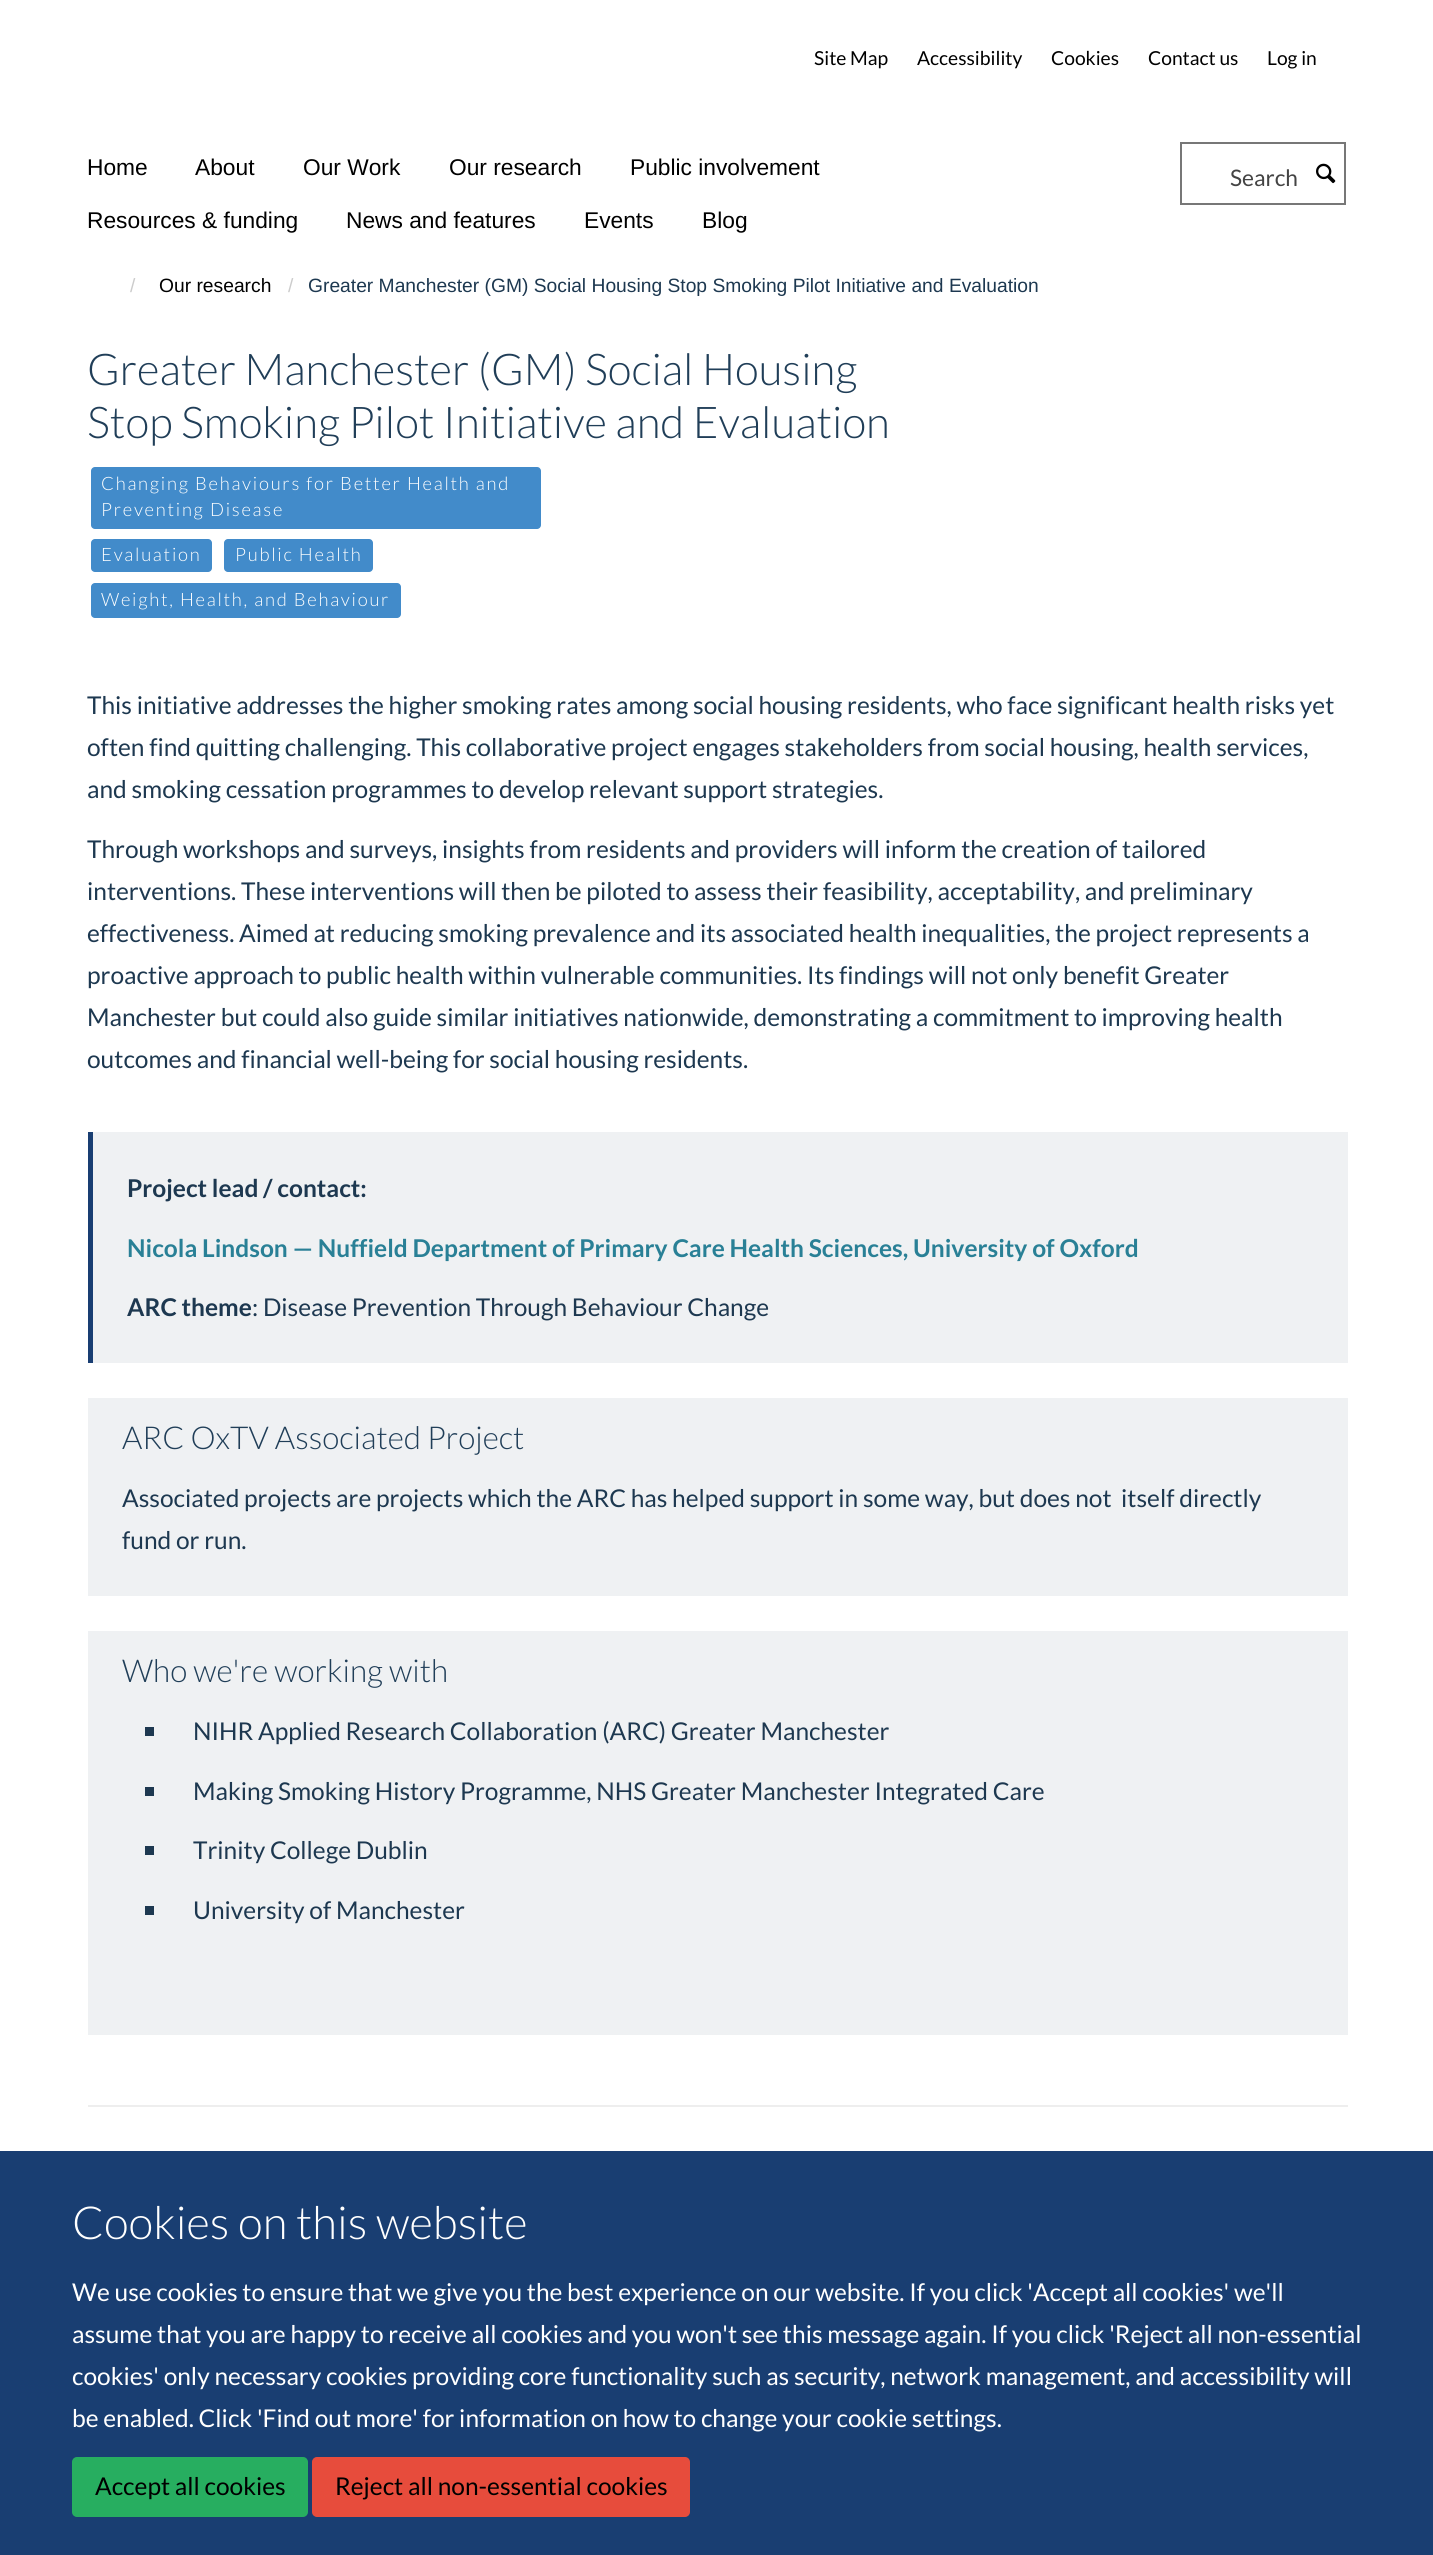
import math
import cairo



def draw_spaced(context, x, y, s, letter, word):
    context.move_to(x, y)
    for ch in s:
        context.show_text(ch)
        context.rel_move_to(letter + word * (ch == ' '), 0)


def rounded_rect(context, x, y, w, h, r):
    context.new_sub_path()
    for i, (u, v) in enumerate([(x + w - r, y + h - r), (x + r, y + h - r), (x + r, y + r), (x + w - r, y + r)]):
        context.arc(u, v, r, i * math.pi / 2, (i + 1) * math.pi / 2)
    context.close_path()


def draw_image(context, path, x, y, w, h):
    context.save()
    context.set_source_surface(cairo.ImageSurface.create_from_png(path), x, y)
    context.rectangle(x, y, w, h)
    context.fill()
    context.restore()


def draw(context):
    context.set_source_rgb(1, 1, 1)
    context.paint()
    context.rectangle(1181, 143, 164, 61)
    context.set_source_rgb(119 / 255, 119 / 255, 119 / 255)
    context.stroke()
    draw_image(context, "images/1.png", 1316, 163, 20, 21)
    context.set_source_rgb(66 / 255, 139 / 255, 202 / 255)
    rounded_rect(context, 91, 467, 450, 62, 4)
    context.fill()
    rounded_rect(context, 91, 539, 121, 33, 4)
    context.fill()
    rounded_rect(context, 224, 539, 149, 33, 4)
    context.fill()
    rounded_rect(context, 91, 583, 310, 35, 4)
    context.fill()
    context.set_source_rgb(239 / 255, 241 / 255, 243 / 255)
    context.rectangle(93, 1132, 1255, 231)
    context.fill()
    context.set_source_rgb(25 / 255, 62 / 255, 114 / 255)
    context.rectangle(88, 1132, 5, 231)
    context.fill()
    context.set_source_rgb(239 / 255, 241 / 255, 243 / 255)
    context.rectangle(88, 1398, 1260, 198)
    context.fill()
    context.rectangle(88, 1631, 1260, 404)
    context.fill()
    context.set_source_rgb(29 / 255, 56 / 255, 80 / 255)
    context.rectangle(145, 1727, 9, 9)
    context.fill()
    context.rectangle(145, 1787, 9, 9)
    context.fill()
    context.rectangle(145, 1846, 9, 9)
    context.fill()
    context.rectangle(145, 1906, 9, 9)
    context.fill()
    context.set_source_rgb(238 / 255, 238 / 255, 238 / 255)
    context.rectangle(88, 2105, 1260, 2)
    context.fill()
    context.set_source_rgb(25 / 255, 62 / 255, 114 / 255)
    context.rectangle(0, 2151, 1433, 404)
    context.fill()
    context.set_source_rgb(39 / 255, 174 / 255, 96 / 255)
    rounded_rect(context, 73, 2458, 234, 58, 4)
    context.fill_preserve()
    context.stroke()
    context.set_source_rgb(231 / 255, 76 / 255, 60 / 255)
    rounded_rect(context, 313, 2458, 376, 58, 4)
    context.fill_preserve()
    context.stroke()
    context.select_font_face("Lato")
    context.set_font_size(19.25)
    context.set_source_rgb(0, 0, 0)
    context.move_to(814, 65)
    context.show_text("Site Map")
    context.move_to(917, 65)
    context.show_text("Accessibility")
    context.move_to(1051, 65)
    context.show_text("Cookies")
    context.move_to(1148, 65)
    context.show_text("Contact us")
    context.move_to(1267, 65)
    context.show_text("Log in")
    context.select_font_face("Liberation Sans")
    context.set_font_size(22.75)
    context.move_to(87, 175)
    context.show_text("Home")
    context.move_to(195, 175)
    context.show_text("About")
    context.move_to(303, 175)
    context.show_text("Our Work")
    context.move_to(449, 175)
    context.show_text("Our research")
    context.move_to(630, 175)
    context.show_text("Public involvement")
    context.move_to(87, 228)
    context.show_text("Resources & funding")
    context.move_to(346, 228)
    context.show_text("News and features")
    context.move_to(584, 228)
    context.show_text("Events")
    context.move_to(702, 228)
    context.show_text("Blog")
    context.select_font_face("Lato")
    context.set_source_rgb(68 / 255, 68 / 255, 68 / 255)
    context.move_to(1230, 186)
    context.show_text("Search")
    context.select_font_face("Liberation Sans")
    context.set_font_size(19.25)
    context.set_source_rgb(204 / 255, 204 / 255, 204 / 255)
    context.move_to(130, 292)
    context.show_text("/")
    context.set_source_rgb(0, 0, 0)
    context.move_to(159, 292)
    context.show_text("Our research")
    context.set_source_rgb(204 / 255, 204 / 255, 204 / 255)
    context.move_to(288, 292)
    context.show_text("/")
    context.set_source_rgb(29 / 255, 56 / 255, 80 / 255)
    context.move_to(308, 292)
    context.show_text("Greater Manchester (GM) Social Housing Stop Smoking Pilot Initiative and Evaluation")
    context.select_font_face("Lato Light")
    context.set_font_size(43.75)
    context.set_source_rgb(32 / 255, 62 / 255, 88 / 255)
    context.move_to(87, 385)
    context.show_text("Greater Manchester (GM) Social Housing")
    context.move_to(87, 438)
    context.show_text("Stop Smoking Pilot Initiative and Evaluation")
    context.set_font_size(18.4)
    context.set_source_rgb(1, 1, 1)
    draw_spaced(context, 101, 490, "Changing Behaviours for Better Health and", 1.75, 0)
    draw_spaced(context, 101, 516, "Preventing Disease", 1.75, 0)
    draw_spaced(context, 101, 561, "Evaluation", 1.75, 0)
    draw_spaced(context, 235, 561, "Public Health", 1.75, 0)
    draw_spaced(context, 101, 606, "Weight, Health, and Behaviour", 1.75, 0)
    context.select_font_face("Lato")
    context.set_font_size(24.5)
    context.set_source_rgb(29 / 255, 56 / 255, 80 / 255)
    context.move_to(87, 714)
    context.show_text("This initiative addresses the higher smoking rates among social housing residents, who face significant health risks yet")
    context.move_to(87, 756)
    context.show_text("often find quitting challenging. This collaborative project engages stakeholders from social housing, health services,")
    context.move_to(87, 798)
    context.show_text("and smoking cessation programmes to develop relevant support strategies.")
    context.move_to(87, 858)
    context.show_text("Through workshops and surveys, insights from residents and providers will inform the creation of tailored")
    context.move_to(87, 900)
    context.show_text("interventions. These interventions will then be piloted to assess their feasibility, acceptability, and preliminary")
    context.move_to(87, 942)
    context.show_text("effectiveness. Aimed at reducing smoking prevalence and its associated health inequalities, the project represents a")
    context.move_to(87, 984)
    context.show_text("proactive approach to public health within vulnerable communities. Its findings will not only benefit Greater")
    context.move_to(87, 1026)
    context.show_text("Manchester but could also guide similar initiatives nationwide, demonstrating a commitment to improving health")
    context.move_to(87, 1068)
    context.show_text("outcomes and financial well-being for social housing residents.")
    context.select_font_face("Lato", cairo.FontSlant.NORMAL, cairo.FontWeight.BOLD)
    context.move_to(127, 1197)
    context.show_text("Project lead / contact:")
    context.set_source_rgb(41 / 255, 128 / 255, 150 / 255)
    context.move_to(127, 1257)
    context.show_text("Nicola Lindson — Nuffield Department of Primary Care Health Sciences, University of Oxford")
    context.set_source_rgb(29 / 255, 56 / 255, 80 / 255)
    context.move_to(127, 1316)
    context.show_text("ARC theme")
    context.select_font_face("Lato")
    context.move_to(252, 1316)
    context.show_text(": Disease Prevention Through Behaviour Change")
    context.select_font_face("Lato Light")
    context.set_font_size(31.5)
    context.set_source_rgb(32 / 255, 62 / 255, 88 / 255)
    context.move_to(122, 1449)
    context.show_text("ARC OxTV Associated Project")
    context.select_font_face("Lato")
    context.set_font_size(24.5)
    context.set_source_rgb(29 / 255, 56 / 255, 80 / 255)
    context.move_to(122, 1507)
    context.show_text("Associated projects are projects which the ARC has helped support in some way, but does not  itself directly")
    context.move_to(122, 1549)
    context.show_text("fund or run.")
    context.select_font_face("Lato Light")
    context.set_font_size(31.5)
    context.set_source_rgb(32 / 255, 62 / 255, 88 / 255)
    context.move_to(122, 1682)
    context.show_text("Who we're working with")
    context.select_font_face("Lato")
    context.set_font_size(24.5)
    context.set_source_rgb(29 / 255, 56 / 255, 80 / 255)
    context.move_to(193, 1740)
    context.show_text("NIHR Applied Research Collaboration (ARC) Greater Manchester")
    context.move_to(193, 1800)
    context.show_text("Making Smoking History Programme, NHS Greater Manchester Integrated Care")
    context.move_to(193, 1859)
    context.show_text("Trinity College Dublin")
    context.move_to(193, 1919)
    context.show_text("University of Manchester")
    context.select_font_face("Lato Light")
    context.set_font_size(45.5)
    context.set_source_rgb(1, 1, 1)
    context.move_to(72, 2239)
    context.show_text("Cookies on this website")
    context.select_font_face("Lato")
    context.set_font_size(24.5)
    context.move_to(72, 2301)
    context.show_text("We use cookies to ensure that we give you the best experience on our website. If you click 'Accept all cookies' we'll")
    context.move_to(72, 2343)
    context.show_text("assume that you are happy to receive all cookies and you won't see this message again. If you click 'Reject all non-essential")
    context.move_to(72, 2385)
    context.show_text("cookies' only necessary cookies providing core functionality such as security, network management, and accessibility will")
    context.move_to(72, 2427)
    context.show_text("be enabled. Click 'Find out more' for information on how to change your cookie settings.")
    context.set_source_rgb(0, 0, 0)
    context.move_to(95, 2495)
    context.show_text("Accept all cookies")
    context.move_to(335, 2495)
    context.show_text("Reject all non-essential cookies")


surface = cairo.ImageSurface(cairo.Format.RGB24, 1433, 2555)
context = cairo.Context(surface)
options = cairo.FontOptions()
options.set_hint_metrics(cairo.HintMetrics.OFF)
options.set_hint_style(cairo.HintStyle.NONE)
context.set_font_options(options)
context.set_miter_limit(4)
draw(context)
surface.write_to_png("out.png")
